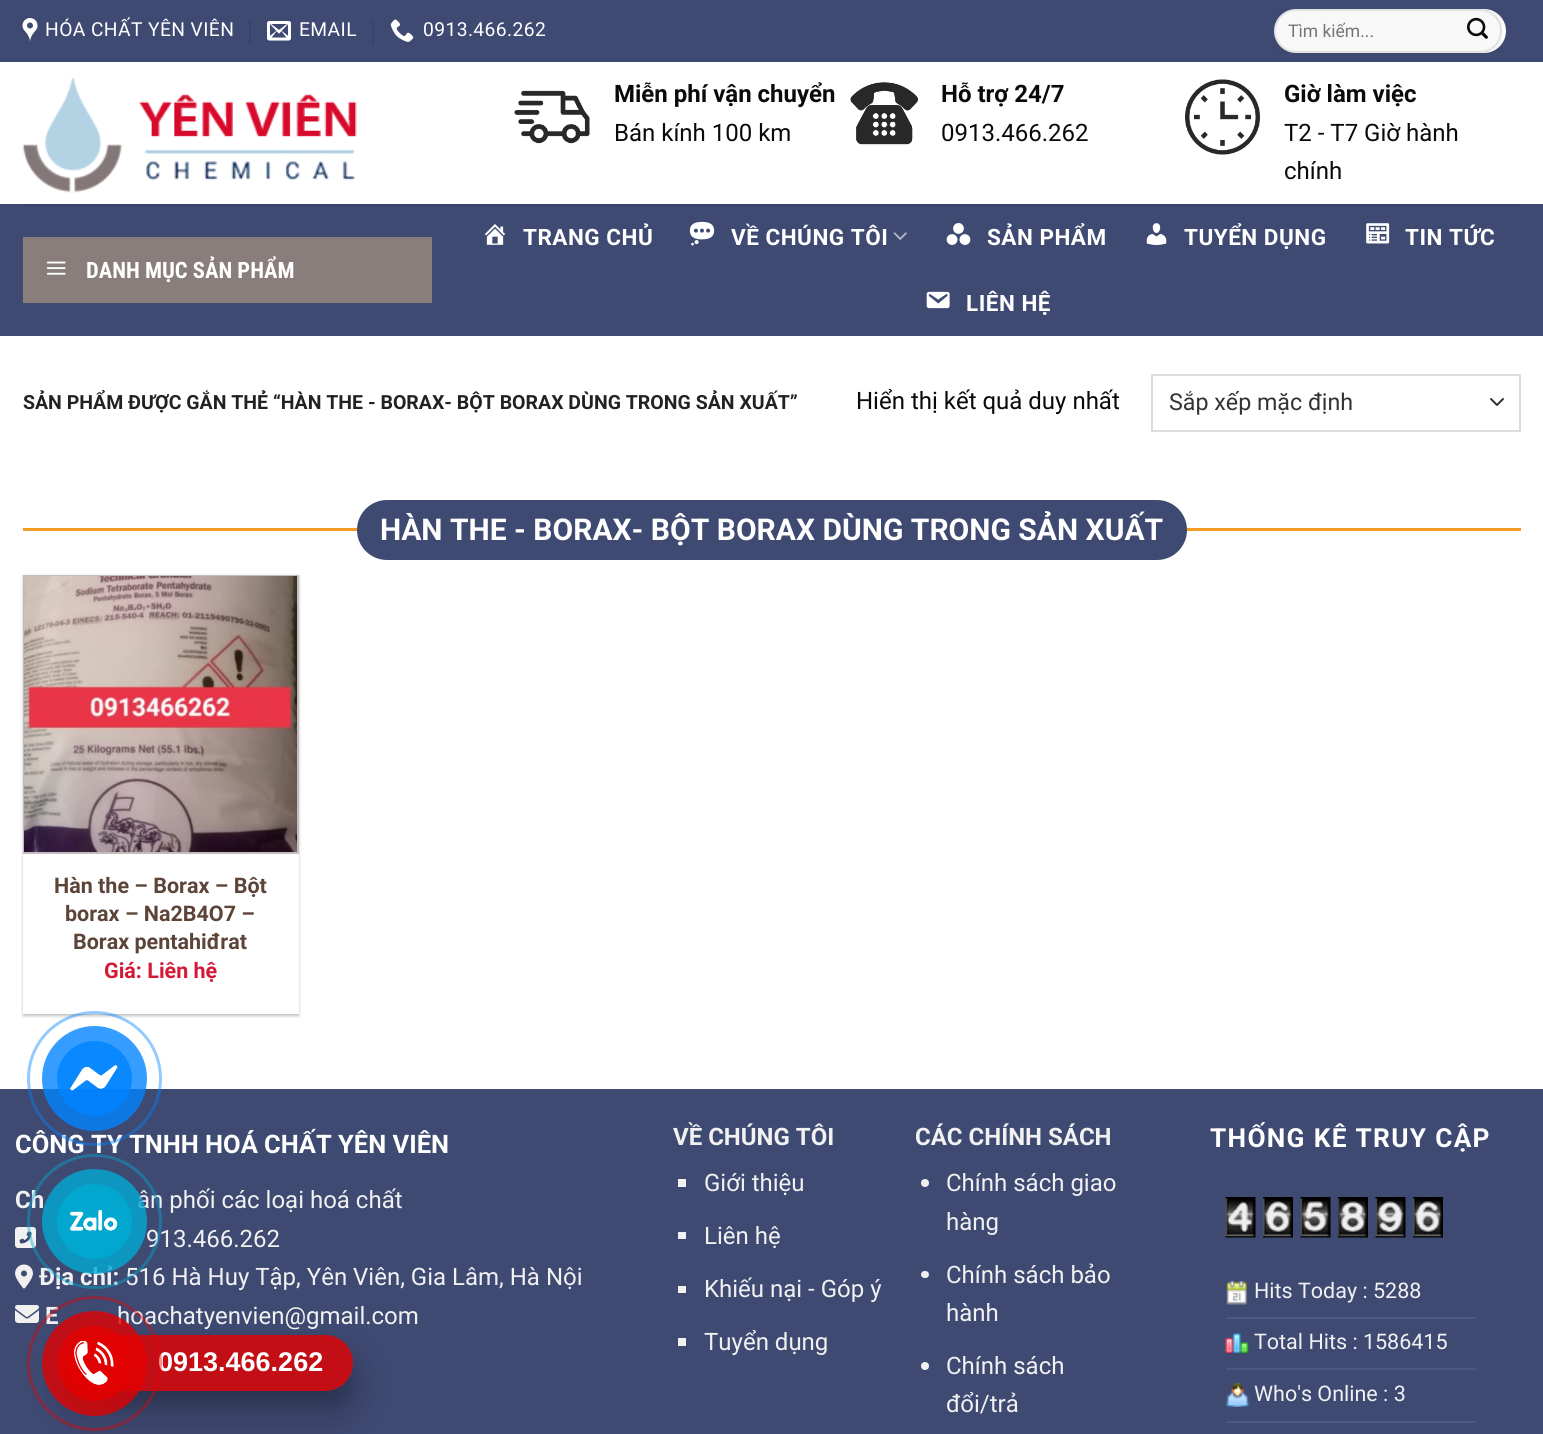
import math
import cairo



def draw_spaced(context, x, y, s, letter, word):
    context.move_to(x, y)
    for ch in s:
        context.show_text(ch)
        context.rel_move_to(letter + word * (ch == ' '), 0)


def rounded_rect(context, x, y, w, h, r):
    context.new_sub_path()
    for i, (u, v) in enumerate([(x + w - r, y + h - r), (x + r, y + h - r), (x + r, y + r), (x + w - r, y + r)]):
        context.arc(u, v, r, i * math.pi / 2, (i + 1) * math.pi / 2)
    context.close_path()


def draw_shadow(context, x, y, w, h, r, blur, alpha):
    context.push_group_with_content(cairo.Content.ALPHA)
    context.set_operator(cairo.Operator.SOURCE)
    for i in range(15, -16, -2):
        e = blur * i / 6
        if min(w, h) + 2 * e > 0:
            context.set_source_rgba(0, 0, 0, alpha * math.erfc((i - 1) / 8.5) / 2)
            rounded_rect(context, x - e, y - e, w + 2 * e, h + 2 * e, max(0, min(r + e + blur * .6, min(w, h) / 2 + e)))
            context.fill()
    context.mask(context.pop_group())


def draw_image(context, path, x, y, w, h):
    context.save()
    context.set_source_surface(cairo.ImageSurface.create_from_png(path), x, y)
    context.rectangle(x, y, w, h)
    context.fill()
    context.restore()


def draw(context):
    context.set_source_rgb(1, 1, 1)
    context.paint()
    context.set_source_rgb(63 / 255, 74 / 255, 115 / 255)
    context.rectangle(0, 0, 1543, 62)
    context.fill()
    draw_image(context, "images/1.png", 22, 18, 16, 24)
    context.set_source_rgb(57 / 255, 67 / 255, 104 / 255)
    context.rectangle(249, 21, 2, 23)
    context.fill()
    draw_image(context, "images/2.png", 267, 21, 24, 20)
    context.rectangle(372, 21, 2, 23)
    context.fill()
    draw_image(context, "images/3.png", 390, 19, 24, 23)
    context.set_source_rgb(1, 1, 1)
    rounded_rect(context, 1274, 9, 232, 44, 22)
    context.fill()
    context.set_source_rgba(0, 0, 0, 0.03)
    context.rectangle(1274, 9, 228, 44)
    context.fill()
    rounded_rect(context, 1275, 10, 226, 42, 21)
    context.set_source_rgba(0, 0, 0, 0.09)
    context.stroke()
    draw_image(context, "images/4.png", 1467, 17, 21, 22)
    draw_image(context, "images/5.png", 22, 77, 335, 116)
    draw_image(context, "images/6.png", 514, 90, 76, 54)
    draw_image(context, "images/7.png", 850, 82, 68, 63)
    draw_image(context, "images/8.png", 1185, 79, 75, 76)
    context.set_source_rgb(63 / 255, 74 / 255, 115 / 255)
    context.rectangle(0, 204, 1543, 132)
    context.fill()
    context.set_source_rgb(58 / 255, 68 / 255, 105 / 255)
    context.rectangle(23, 204, 1498, 2)
    context.fill()
    context.set_source_rgb(138 / 255, 126 / 255, 124 / 255)
    context.rectangle(23, 237, 409, 66)
    context.fill()
    draw_image(context, "images/9.png", 46, 261, 20, 14)
    draw_image(context, "images/10.png", 484, 224, 22, 21)
    draw_image(context, "images/11.png", 689, 221, 26, 25)
    draw_image(context, "images/12.png", 893, 232, 14, 8)
    draw_image(context, "images/13.png", 946, 223, 25, 22)
    draw_image(context, "images/14.png", 1146, 223, 21, 22)
    draw_image(context, "images/15.png", 1366, 223, 24, 21)
    draw_image(context, "images/16.png", 926, 291, 24, 18)
    context.new_path()
    context.move_to(1491, 399)
    context.line_to(1497, 405)
    context.line_to(1503, 399)
    context.set_source_rgb(51 / 255, 51 / 255, 51 / 255)
    context.set_line_cap(cairo.LineCap.ROUND)
    context.set_line_join(cairo.LineJoin.ROUND)
    context.stroke()
    context.rectangle(1152, 375, 368, 56)
    context.set_source_rgb(221 / 255, 221 / 255, 221 / 255)
    context.set_line_cap(cairo.LineCap.BUTT)
    context.set_line_join(cairo.LineJoin.MITER)
    context.stroke()
    context.set_source_rgb(246 / 255, 156 / 255, 36 / 255)
    context.rectangle(23, 528, 334, 3)
    context.fill()
    context.set_source_rgb(63 / 255, 74 / 255, 115 / 255)
    rounded_rect(context, 357, 500, 830, 60, 30)
    context.fill()
    context.set_source_rgb(246 / 255, 156 / 255, 36 / 255)
    context.rectangle(1187, 528, 334, 3)
    context.fill()
    context.set_source_rgb(0, 0, 0)
    draw_shadow(context, 23, 576, 276, 440, 0, 1.5, 0.24)
    draw_shadow(context, 26, 579, 270, 434, 0, 2, 0.12)
    context.set_source_rgb(1, 1, 1)
    context.rectangle(23, 854, 276, 160)
    context.fill()
    context.rectangle(24, 576, 274, 277)
    context.set_source_rgb(196 / 255, 188 / 255, 188 / 255)
    context.stroke()
    draw_image(context, "images/17.png", 24, 576, 273, 276)
    context.set_source_rgb(63 / 255, 74 / 255, 115 / 255)
    context.rectangle(0, 1089, 1543, 345)
    context.fill()
    draw_image(context, "images/18.png", 15, 1227, 21, 21)
    draw_image(context, "images/19.png", 15, 1264, 18, 25)
    draw_image(context, "images/20.png", 15, 1305, 24, 18)
    context.set_source_rgb(241 / 255, 241 / 255, 241 / 255)
    context.rectangle(678, 1179, 8, 8)
    context.fill()
    context.rectangle(678, 1232, 8, 7)
    context.fill()
    context.rectangle(678, 1286, 8, 7)
    context.fill()
    context.rectangle(678, 1338, 8, 8)
    context.fill()
    context.arc(925, 1183, 4, 0, 2 * math.pi)
    context.fill()
    rounded_rect(context, 921, 1271, 8, 7, 3.5)
    context.fill()
    context.arc(925, 1366, 4, 0, 2 * math.pi)
    context.fill()
    draw_image(context, "images/21.png", 1225, 1197, 31, 41)
    draw_image(context, "images/22.png", 1263, 1197, 30, 41)
    draw_image(context, "images/23.png", 1300, 1197, 31, 41)
    draw_image(context, "images/24.png", 1338, 1197, 30, 41)
    draw_image(context, "images/25.png", 1375, 1197, 31, 41)
    draw_image(context, "images/26.png", 1413, 1197, 30, 41)
    context.set_source_rgb(78 / 255, 88 / 255, 126 / 255)
    context.rectangle(1226, 1317, 250, 2)
    context.fill()
    draw_image(context, "images/27.png", 1226, 1281, 21, 24)
    context.rectangle(1226, 1368, 250, 2)
    context.fill()
    draw_image(context, "images/28.png", 1225, 1333, 24, 22)
    context.rectangle(1226, 1421, 250, 2)
    context.fill()
    draw_image(context, "images/29.png", 1225, 1383, 25, 24)
    context.save()
    context.set_fill_rule(cairo.FillRule.EVEN_ODD)
    context.new_path()
    context.move_to(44, 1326)
    context.line_to(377, 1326)
    context.line_to(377, 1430)
    context.line_to(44, 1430)
    context.close_path()
    context.move_to(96, 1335)
    context.line_to(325, 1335)
    context.curve_to(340.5, 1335, 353, 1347.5, 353, 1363)
    context.curve_to(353, 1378.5, 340.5, 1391, 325, 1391)
    context.line_to(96, 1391)
    context.curve_to(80.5, 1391, 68, 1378.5, 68, 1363)
    context.curve_to(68, 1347.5, 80.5, 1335, 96, 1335)
    context.close_path()
    context.clip()
    context.set_source_rgb(0, 0, 0)
    draw_shadow(context, 68, 1350, 285, 56, 28, 7.5, 0.1)
    context.restore()
    context.save()
    context.set_fill_rule(cairo.FillRule.EVEN_ODD)
    context.new_path()
    context.move_to(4, 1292)
    context.line_to(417, 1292)
    context.line_to(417, 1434)
    context.line_to(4, 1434)
    context.close_path()
    context.move_to(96, 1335)
    context.line_to(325, 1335)
    context.curve_to(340.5, 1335, 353, 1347.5, 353, 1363)
    context.curve_to(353, 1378.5, 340.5, 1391, 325, 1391)
    context.line_to(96, 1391)
    context.curve_to(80.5, 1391, 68, 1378.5, 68, 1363)
    context.curve_to(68, 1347.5, 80.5, 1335, 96, 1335)
    context.close_path()
    context.clip()
    context.set_source_rgb(0, 0, 0)
    draw_shadow(context, 68, 1356, 285, 56, 28, 21, 0.25)
    context.restore()
    context.set_source_rgba(227 / 255, 0, 0, 0.81)
    rounded_rect(context, 68, 1335, 285, 56, 28)
    context.fill()
    context.select_font_face("Roboto")
    context.set_font_size(19.25)
    context.set_source_rgb(1, 1, 1)
    draw_spaced(context, 45, 36, "HÓA CHẤT YÊN VIÊN", 0.4, 0)
    draw_spaced(context, 299, 36, "EMAIL", 0.4, 0)
    draw_spaced(context, 423, 36, "0913.466.262", 0.4, 0)
    context.set_font_size(17.5)
    context.set_source_rgb(117 / 255, 117 / 255, 117 / 255)
    context.move_to(1288, 37)
    context.show_text("Tìm kiếm...")
    context.select_font_face("Roboto", cairo.FontSlant.NORMAL, cairo.FontWeight.BOLD)
    context.set_font_size(24)
    context.set_source_rgb(10 / 255, 10 / 255, 10 / 255)
    context.move_to(614, 102)
    context.show_text("Miễn phí vận chuyển")
    context.select_font_face("Roboto")
    context.move_to(614, 141)
    context.show_text("Bán kính 100 km")
    context.select_font_face("Roboto", cairo.FontSlant.NORMAL, cairo.FontWeight.BOLD)
    context.move_to(941, 102)
    context.show_text("Hỗ trợ 24/7")
    context.select_font_face("Roboto")
    context.move_to(941, 141)
    context.show_text("0913.466.262")
    context.select_font_face("Roboto", cairo.FontSlant.NORMAL, cairo.FontWeight.BOLD)
    context.move_to(1284, 102)
    context.show_text("Giờ làm việc")
    context.select_font_face("Roboto")
    context.move_to(1284, 141)
    context.show_text("T2 - T7 Giờ hành")
    context.move_to(1284, 179)
    context.show_text("chính")
    context.select_font_face("Roboto Condensed", cairo.FontSlant.NORMAL, cairo.FontWeight.BOLD)
    context.set_font_size(22.5)
    context.set_source_rgb(1, 1, 1)
    context.move_to(86, 278)
    context.show_text("DANH MỤC SẢN PHẨM")
    context.select_font_face("Roboto", cairo.FontSlant.NORMAL, cairo.FontWeight.BOLD)
    draw_spaced(context, 523, 245, "TRANG CHỦ", 0.5, 0)
    draw_spaced(context, 731, 245, "VỀ CHÚNG TÔI", 0.5, 0)
    draw_spaced(context, 987, 245, "SẢN PHẨM", 0.5, 0)
    draw_spaced(context, 1184, 245, "TUYỂN DỤNG", 0.5, 0)
    draw_spaced(context, 1405, 245, "TIN TỨC", 0.5, 0)
    draw_spaced(context, 966, 311, "LIÊN HỆ", 0.5, 0)
    context.set_font_size(19.5)
    context.set_source_rgb(34 / 255, 34 / 255, 34 / 255)
    context.move_to(23, 409)
    context.show_text("SẢN PHẨM ĐƯỢC GẮN THẺ “HÀN THE - BORAX- BỘT BORAX DÙNG TRONG SẢN XUẤT”")
    context.select_font_face("Roboto")
    context.set_font_size(24)
    context.set_source_rgb(10 / 255, 10 / 255, 10 / 255)
    context.move_to(856, 409)
    context.show_text("Hiển thị kết quả duy nhất")
    context.set_font_size(23.25)
    context.set_source_rgb(51 / 255, 51 / 255, 51 / 255)
    context.move_to(1169, 410)
    context.show_text("Sắp xếp mặc định")
    context.select_font_face("Roboto", cairo.FontSlant.NORMAL, cairo.FontWeight.BOLD)
    context.set_font_size(30)
    context.set_source_rgb(1, 1, 1)
    context.move_to(380, 540)
    context.show_text("HÀN THE - BORAX- BỘT BORAX DÙNG TRONG SẢN XUẤT")
    context.set_font_size(21.5)
    context.set_source_rgb(92 / 255, 68 / 255, 57 / 255)
    context.move_to(54, 893)
    context.show_text("Hàn the – Borax – Bột")
    context.move_to(65, 921)
    context.show_text("borax – Na2B4O7 –")
    context.move_to(73, 949)
    context.show_text("Borax pentahiđrat")
    context.set_source_rgb(212 / 255, 24 / 255, 54 / 255)
    context.move_to(104, 978)
    context.show_text("Giá: Liên hệ")
    context.set_font_size(25.5)
    context.set_source_rgb(1, 1, 1)
    context.move_to(15, 1153)
    context.show_text("CÔNG TY TNHH HOÁ CHẤT YÊN VIÊN")
    context.set_font_size(24)
    context.set_source_rgb(241 / 255, 241 / 255, 241 / 255)
    context.move_to(15, 1208)
    context.show_text("Ch")
    context.select_font_face("Roboto")
    context.move_to(137, 1208)
    context.show_text("ân phối các loại hoá chất")
    context.move_to(146, 1247)
    context.show_text("913.466.262")
    context.select_font_face("Roboto", cairo.FontSlant.NORMAL, cairo.FontWeight.BOLD)
    context.move_to(39, 1285)
    context.show_text("Địa chỉ:")
    context.select_font_face("Roboto")
    context.move_to(125, 1285)
    context.show_text("516 Hà Huy Tập, Yên Viên, Gia Lâm, Hà Nội")
    context.select_font_face("Roboto", cairo.FontSlant.NORMAL, cairo.FontWeight.BOLD)
    context.move_to(45, 1324)
    context.show_text("E")
    context.select_font_face("Roboto")
    context.move_to(117, 1324)
    context.show_text("hoachatyenvien@gmail.com")
    context.select_font_face("Roboto", cairo.FontSlant.NORMAL, cairo.FontWeight.BOLD)
    context.move_to(673, 1145)
    context.show_text("VỀ CHÚNG TÔI")
    context.select_font_face("Roboto")
    context.move_to(704, 1191)
    context.show_text("Giới thiệu")
    context.move_to(704, 1244)
    context.show_text("Liên hệ")
    context.move_to(704, 1297)
    context.show_text("Khiếu nại - Góp ý")
    context.move_to(704, 1350)
    context.show_text("Tuyển dụng")
    context.select_font_face("Roboto", cairo.FontSlant.NORMAL, cairo.FontWeight.BOLD)
    context.move_to(915, 1145)
    context.show_text("CÁC CHÍNH SÁCH")
    context.select_font_face("Roboto")
    context.move_to(946, 1191)
    context.show_text("Chính sách giao")
    context.move_to(946, 1230)
    context.show_text("hàng")
    context.move_to(946, 1283)
    context.show_text("Chính sách bảo")
    context.move_to(946, 1321)
    context.show_text("hành")
    context.move_to(946, 1374)
    context.show_text("Chính sách")
    context.move_to(946, 1412)
    context.show_text("đổi/trả")
    context.select_font_face("Roboto", cairo.FontSlant.NORMAL, cairo.FontWeight.BOLD)
    context.set_font_size(26.25)
    context.set_source_rgb(1, 1, 1)
    draw_spaced(context, 1210, 1147, "THỐNG KÊ TRUY CẬP", 1.3, 0)
    context.select_font_face("Roboto")
    context.set_font_size(21.5)
    context.set_source_rgb(241 / 255, 241 / 255, 241 / 255)
    context.move_to(1254, 1298)
    context.show_text("Hits Today : 5288")
    context.move_to(1254, 1349)
    context.show_text("Total Hits : 1586415")
    context.move_to(1254, 1401)
    context.show_text("Who's Online : 3")
    context.new_path()
    context.arc(94.5, 1078.5, 66, 0, 2 * math.pi)
    context.set_source_rgba(0, 132 / 255, 1, 0.42)
    context.set_line_width(3)
    context.stroke()
    context.set_source_rgba(0, 132 / 255, 1, 0.79)
    context.arc(94.5, 1078.5, 52.5, 0, 2 * math.pi)
    context.fill()
    context.set_source_rgba(0, 132 / 255, 1, 0.81)
    context.arc(94.5, 1078.5, 37.5, 0, 2 * math.pi)
    context.fill()
    draw_image(context, "images/30.png", 70, 1065, 48, 26)
    context.arc(94.5, 1221.5, 66, 0, 2 * math.pi)
    context.set_source_rgba(0, 171 / 255, 211 / 255, 0.42)
    context.stroke()
    context.set_source_rgba(0, 171 / 255, 211 / 255, 0.79)
    context.arc(94.5, 1221.5, 52.5, 0, 2 * math.pi)
    context.fill()
    context.set_source_rgba(0, 171 / 255, 211 / 255, 0.81)
    context.arc(94.5, 1221.5, 37.5, 0, 2 * math.pi)
    context.fill()
    draw_image(context, "images/31.png", 70, 1210, 48, 21)
    context.select_font_face("Liberation Sans", cairo.FontSlant.NORMAL, cairo.FontWeight.BOLD)
    context.set_font_size(27)
    context.set_source_rgb(1, 1, 1)
    context.move_to(158, 1371)
    context.show_text("0913.466.262")
    context.new_path()
    context.arc(94.5, 1363.5, 66, 0, 2 * math.pi)
    context.set_source_rgba(227 / 255, 0, 0, 0.42)
    context.stroke()
    context.set_source_rgba(227 / 255, 0, 0, 0.79)
    context.arc(94.5, 1363.5, 52.5, 0, 2 * math.pi)
    context.fill()
    context.set_source_rgba(227 / 255, 0, 0, 0.81)
    context.arc(94.5, 1363.5, 37.5, 0, 2 * math.pi)
    context.fill()
    draw_image(context, "images/32.png", 74, 1340, 40, 45)


surface = cairo.ImageSurface(cairo.Format.RGB24, 1543, 1434)
context = cairo.Context(surface)
options = cairo.FontOptions()
options.set_hint_metrics(cairo.HintMetrics.OFF)
options.set_hint_style(cairo.HintStyle.NONE)
context.set_font_options(options)
context.set_miter_limit(4)
draw(context)
surface.write_to_png("out.png")
